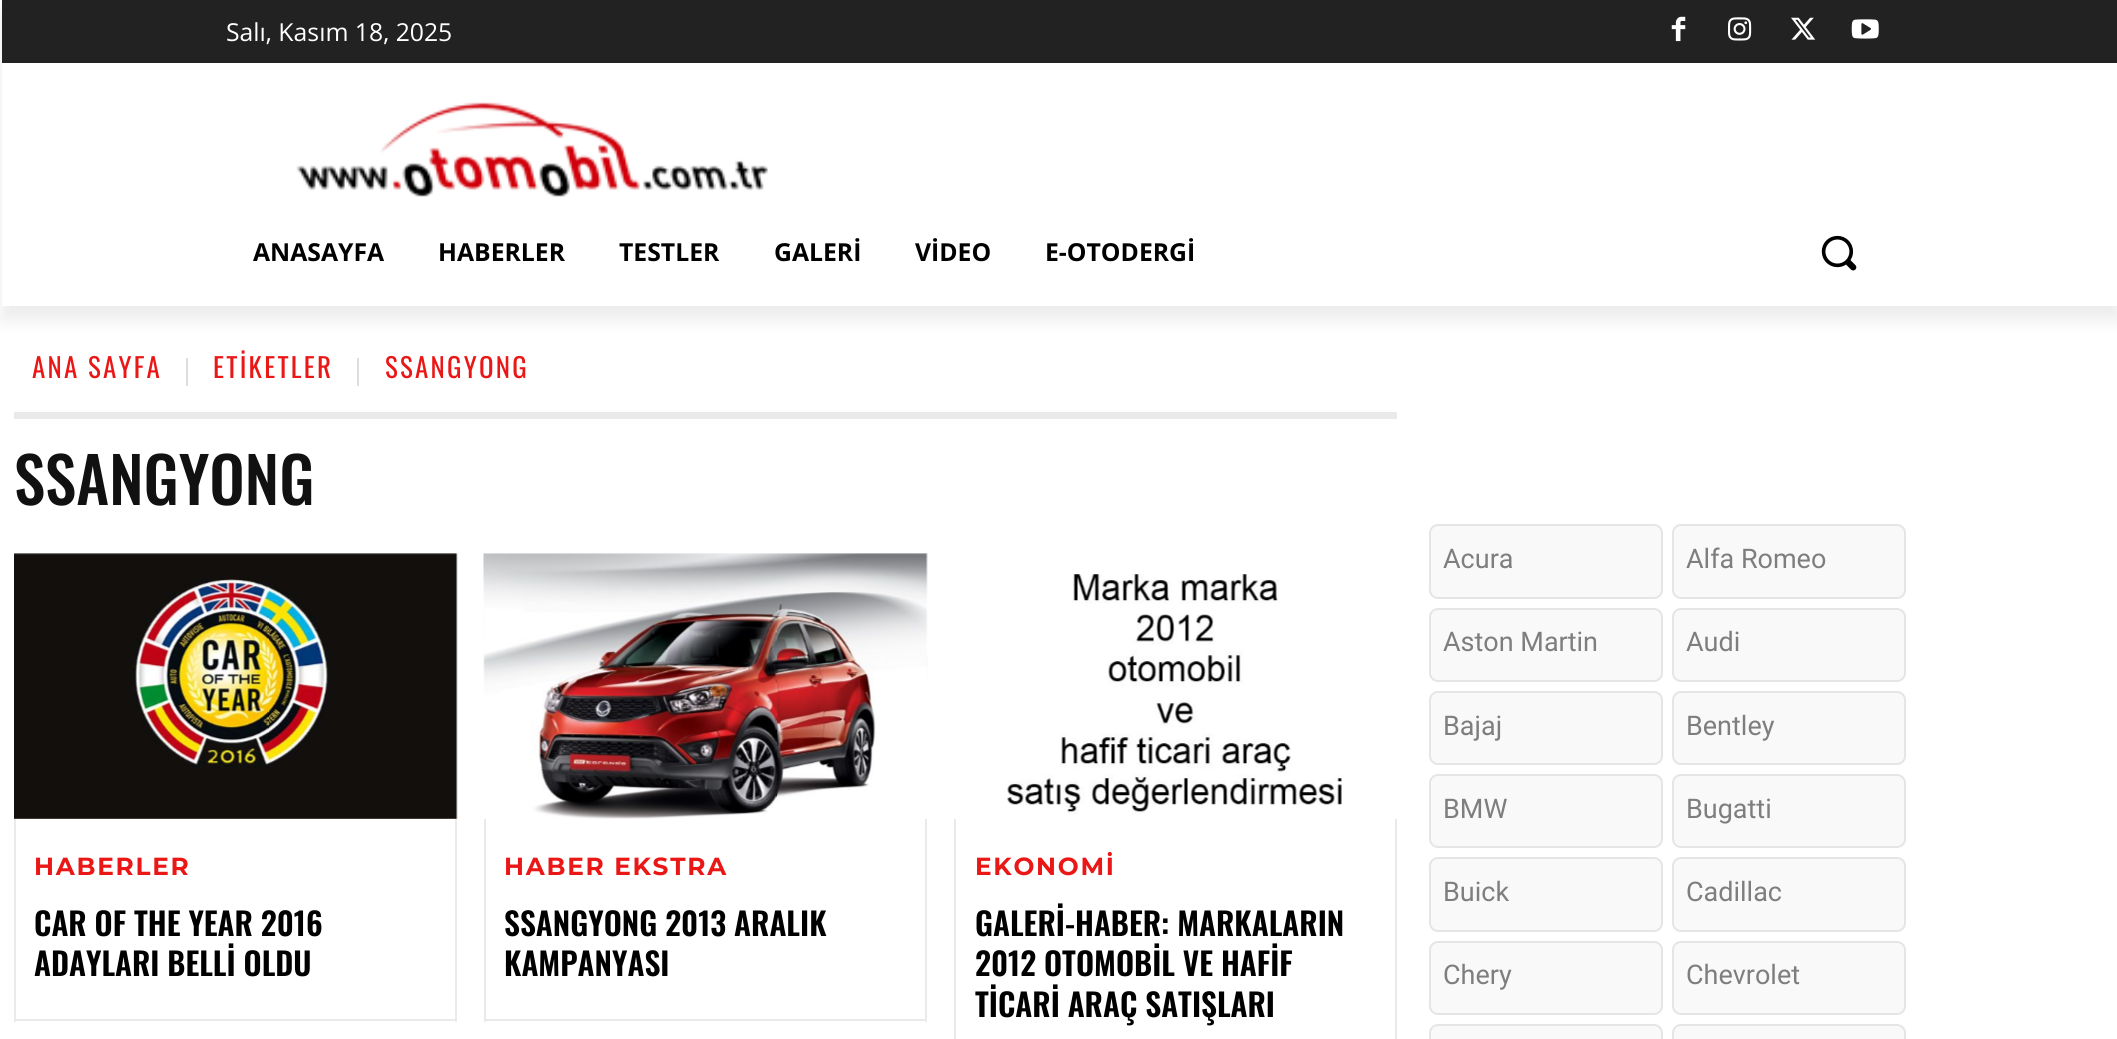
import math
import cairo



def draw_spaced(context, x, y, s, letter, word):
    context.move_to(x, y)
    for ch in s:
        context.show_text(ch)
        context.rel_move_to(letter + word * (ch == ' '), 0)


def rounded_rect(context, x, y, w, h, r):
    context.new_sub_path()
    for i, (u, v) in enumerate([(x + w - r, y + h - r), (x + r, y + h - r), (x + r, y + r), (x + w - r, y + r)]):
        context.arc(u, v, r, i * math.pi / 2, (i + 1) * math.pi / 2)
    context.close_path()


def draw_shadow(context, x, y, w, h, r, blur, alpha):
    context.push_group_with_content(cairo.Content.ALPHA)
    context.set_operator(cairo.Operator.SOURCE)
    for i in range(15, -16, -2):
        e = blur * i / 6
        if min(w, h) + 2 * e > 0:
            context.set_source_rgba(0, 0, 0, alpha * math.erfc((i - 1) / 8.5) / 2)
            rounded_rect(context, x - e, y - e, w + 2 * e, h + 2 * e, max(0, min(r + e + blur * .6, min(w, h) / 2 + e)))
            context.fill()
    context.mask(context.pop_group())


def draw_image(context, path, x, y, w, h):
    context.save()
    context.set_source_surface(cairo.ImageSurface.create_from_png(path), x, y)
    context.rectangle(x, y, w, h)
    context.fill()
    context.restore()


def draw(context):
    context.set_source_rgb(1, 1, 1)
    context.paint()
    context.set_source_rgb(34 / 255, 34 / 255, 34 / 255)
    context.rectangle(2, 0, 2115, 63)
    context.fill()
    draw_image(context, "images/1.png", 1671, 16, 15, 26)
    draw_image(context, "images/2.png", 1728, 17, 24, 24)
    draw_image(context, "images/3.png", 1791, 17, 25, 23)
    draw_image(context, "images/4.png", 1851, 19, 28, 20)
    draw_image(context, "images/5.png", 296, 102, 472, 95)
    context.save()
    context.set_fill_rule(cairo.FillRule.EVEN_ODD)
    context.new_path()
    context.move_to(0, 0)
    context.line_to(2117, 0)
    context.line_to(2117, 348)
    context.line_to(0, 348)
    context.close_path()
    context.move_to(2, 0)
    context.line_to(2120, 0)
    context.line_to(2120, 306)
    context.line_to(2, 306)
    context.close_path()
    context.clip()
    context.set_source_rgb(0, 0, 0)
    draw_shadow(context, 2, 14, 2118, 306, 0, 9, 0.08)
    context.restore()
    draw_image(context, "images/6.png", 1821, 235, 36, 36)
    context.set_source_rgb(221 / 255, 221 / 255, 221 / 255)
    context.rectangle(186, 358, 2, 28)
    context.fill()
    context.rectangle(357, 358, 2, 28)
    context.fill()
    context.set_source_rgb(234 / 255, 234 / 255, 234 / 255)
    context.rectangle(14, 412, 1383, 7)
    context.fill()
    draw_image(context, "images/7.png", 14, 553, 444, 266)
    context.rectangle(455, 819, 2, 203)
    context.fill()
    context.rectangle(14, 1019, 443, 2)
    context.fill()
    context.rectangle(14, 819, 2, 203)
    context.fill()
    draw_image(context, "images/8.png", 483, 553, 445, 266)
    context.rectangle(925, 819, 2, 203)
    context.fill()
    context.rectangle(484, 1019, 443, 2)
    context.fill()
    context.rectangle(484, 819, 2, 203)
    context.fill()
    draw_image(context, "images/9.png", 1007, 574, 335, 241)
    context.rectangle(1395, 819, 2, 220)
    context.fill()
    context.rectangle(954, 819, 2, 220)
    context.fill()
    context.set_source_rgb(249 / 255, 249 / 255, 249 / 255)
    rounded_rect(context, 1430, 525, 232, 73, 8)
    context.fill_preserve()
    context.set_source_rgb(229 / 255, 229 / 255, 229 / 255)
    context.stroke()
    context.set_source_rgb(249 / 255, 249 / 255, 249 / 255)
    rounded_rect(context, 1673, 525, 232, 73, 8)
    context.fill_preserve()
    context.set_source_rgb(229 / 255, 229 / 255, 229 / 255)
    context.stroke()
    context.set_source_rgb(249 / 255, 249 / 255, 249 / 255)
    rounded_rect(context, 1430, 609, 232, 72, 8)
    context.fill_preserve()
    context.set_source_rgb(229 / 255, 229 / 255, 229 / 255)
    context.stroke()
    context.set_source_rgb(249 / 255, 249 / 255, 249 / 255)
    rounded_rect(context, 1673, 609, 232, 72, 8)
    context.fill_preserve()
    context.set_source_rgb(229 / 255, 229 / 255, 229 / 255)
    context.stroke()
    context.set_source_rgb(249 / 255, 249 / 255, 249 / 255)
    rounded_rect(context, 1430, 692, 232, 72, 8)
    context.fill_preserve()
    context.set_source_rgb(229 / 255, 229 / 255, 229 / 255)
    context.stroke()
    context.set_source_rgb(249 / 255, 249 / 255, 249 / 255)
    rounded_rect(context, 1673, 692, 232, 72, 8)
    context.fill_preserve()
    context.set_source_rgb(229 / 255, 229 / 255, 229 / 255)
    context.stroke()
    context.set_source_rgb(249 / 255, 249 / 255, 249 / 255)
    rounded_rect(context, 1430, 775, 232, 72, 8)
    context.fill_preserve()
    context.set_source_rgb(229 / 255, 229 / 255, 229 / 255)
    context.stroke()
    context.set_source_rgb(249 / 255, 249 / 255, 249 / 255)
    rounded_rect(context, 1673, 775, 232, 72, 8)
    context.fill_preserve()
    context.set_source_rgb(229 / 255, 229 / 255, 229 / 255)
    context.stroke()
    context.set_source_rgb(249 / 255, 249 / 255, 249 / 255)
    rounded_rect(context, 1430, 858, 232, 73, 8)
    context.fill_preserve()
    context.set_source_rgb(229 / 255, 229 / 255, 229 / 255)
    context.stroke()
    context.set_source_rgb(249 / 255, 249 / 255, 249 / 255)
    rounded_rect(context, 1673, 858, 232, 73, 8)
    context.fill_preserve()
    context.set_source_rgb(229 / 255, 229 / 255, 229 / 255)
    context.stroke()
    context.set_source_rgb(249 / 255, 249 / 255, 249 / 255)
    rounded_rect(context, 1430, 942, 232, 72, 8)
    context.fill_preserve()
    context.set_source_rgb(229 / 255, 229 / 255, 229 / 255)
    context.stroke()
    context.set_source_rgb(249 / 255, 249 / 255, 249 / 255)
    rounded_rect(context, 1673, 942, 232, 72, 8)
    context.fill_preserve()
    context.set_source_rgb(229 / 255, 229 / 255, 229 / 255)
    context.stroke()
    context.set_source_rgb(249 / 255, 249 / 255, 249 / 255)
    rounded_rect(context, 1430, 1025, 232, 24, 8)
    context.fill_preserve()
    context.set_source_rgb(229 / 255, 229 / 255, 229 / 255)
    context.stroke()
    context.set_source_rgb(249 / 255, 249 / 255, 249 / 255)
    rounded_rect(context, 1673, 1025, 232, 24, 8)
    context.fill_preserve()
    context.set_source_rgb(229 / 255, 229 / 255, 229 / 255)
    context.stroke()
    context.select_font_face("Open Sans")
    context.set_font_size(24.75)
    context.set_source_rgb(1, 1, 1)
    context.move_to(226, 41)
    context.show_text("Salı, Kasım 18, 2025")
    context.select_font_face("Open Sans", cairo.FontSlant.NORMAL, cairo.FontWeight.BOLD)
    context.set_source_rgb(0, 0, 0)
    context.move_to(253, 261)
    context.show_text("ANASAYFA")
    context.move_to(438, 261)
    context.show_text("HABERLER")
    context.move_to(619, 261)
    context.show_text("TESTLER")
    context.move_to(774, 261)
    context.show_text("GALERİ")
    context.move_to(915, 261)
    context.show_text("VİDEO")
    context.move_to(1045, 261)
    context.show_text("E-OTODERGİ")
    context.select_font_face("Oswald")
    context.set_font_size(27)
    context.set_source_rgb(234 / 255, 23 / 255, 23 / 255)
    draw_spaced(context, 32, 378, "ANA SAYFA", 2.25, 0)
    draw_spaced(context, 213, 378, "ETİKETLER", 2.25, 0)
    draw_spaced(context, 385, 378, "SSANGYONG", 2.25, 0)
    context.select_font_face("Oswald Medium")
    context.set_font_size(63)
    context.set_source_rgb(17 / 255, 17 / 255, 17 / 255)
    context.move_to(14, 505)
    context.show_text("SSANGYONG")
    context.select_font_face("Montserrat", cairo.FontSlant.NORMAL, cairo.FontWeight.BOLD)
    context.set_font_size(24.75)
    context.set_source_rgb(234 / 255, 23 / 255, 23 / 255)
    draw_spaced(context, 34, 875, "HABERLER", 1.75, 0)
    context.select_font_face("Oswald SemiBold")
    context.set_font_size(31.5)
    context.set_source_rgb(0, 0, 0)
    context.move_to(34, 936)
    context.show_text("CAR OF THE YEAR 2016")
    context.move_to(34, 976)
    context.show_text("ADAYLARI BELLİ OLDU")
    context.select_font_face("Montserrat", cairo.FontSlant.NORMAL, cairo.FontWeight.BOLD)
    context.set_font_size(24.75)
    context.set_source_rgb(234 / 255, 23 / 255, 23 / 255)
    draw_spaced(context, 504, 875, "HABER EKSTRA", 1.75, 0)
    context.select_font_face("Oswald SemiBold")
    context.set_font_size(31.5)
    context.set_source_rgb(0, 0, 0)
    context.move_to(504, 936)
    context.show_text("SSANGYONG 2013 ARALIK")
    context.move_to(504, 976)
    context.show_text("KAMPANYASI")
    context.select_font_face("Montserrat", cairo.FontSlant.NORMAL, cairo.FontWeight.BOLD)
    context.set_font_size(24.75)
    context.set_source_rgb(234 / 255, 23 / 255, 23 / 255)
    draw_spaced(context, 975, 875, "EKONOMİ", 1.75, 0)
    context.select_font_face("Oswald SemiBold")
    context.set_font_size(31.5)
    context.set_source_rgb(0, 0, 0)
    context.move_to(975, 936)
    context.show_text("GALERİ-HABER: MARKALARIN")
    context.move_to(975, 976)
    context.show_text("2012 OTOMOBİL VE HAFİF")
    context.move_to(975, 1017)
    context.show_text("TİCARİ ARAÇ SATIŞLARI")
    context.select_font_face("Roboto")
    context.set_font_size(27)
    context.set_source_rgb(126 / 255, 126 / 255, 126 / 255)
    context.move_to(1443, 568)
    context.show_text("Acura")
    context.move_to(1686, 568)
    context.show_text("Alfa Romeo")
    context.move_to(1443, 651)
    context.show_text("Aston Martin")
    context.move_to(1686, 651)
    context.show_text("Audi")
    context.move_to(1443, 735)
    context.show_text("Bajaj")
    context.move_to(1686, 735)
    context.show_text("Bentley")
    context.move_to(1443, 818)
    context.show_text("BMW")
    context.move_to(1686, 818)
    context.show_text("Bugatti")
    context.move_to(1443, 901)
    context.show_text("Buick")
    context.move_to(1686, 901)
    context.show_text("Cadillac")
    context.move_to(1443, 984)
    context.show_text("Chery")
    context.move_to(1686, 984)
    context.show_text("Chevrolet")


surface = cairo.ImageSurface(cairo.Format.RGB24, 2117, 1039)
context = cairo.Context(surface)
options = cairo.FontOptions()
options.set_hint_metrics(cairo.HintMetrics.OFF)
options.set_hint_style(cairo.HintStyle.NONE)
context.set_font_options(options)
context.set_miter_limit(4)
draw(context)
surface.write_to_png("out.png")
